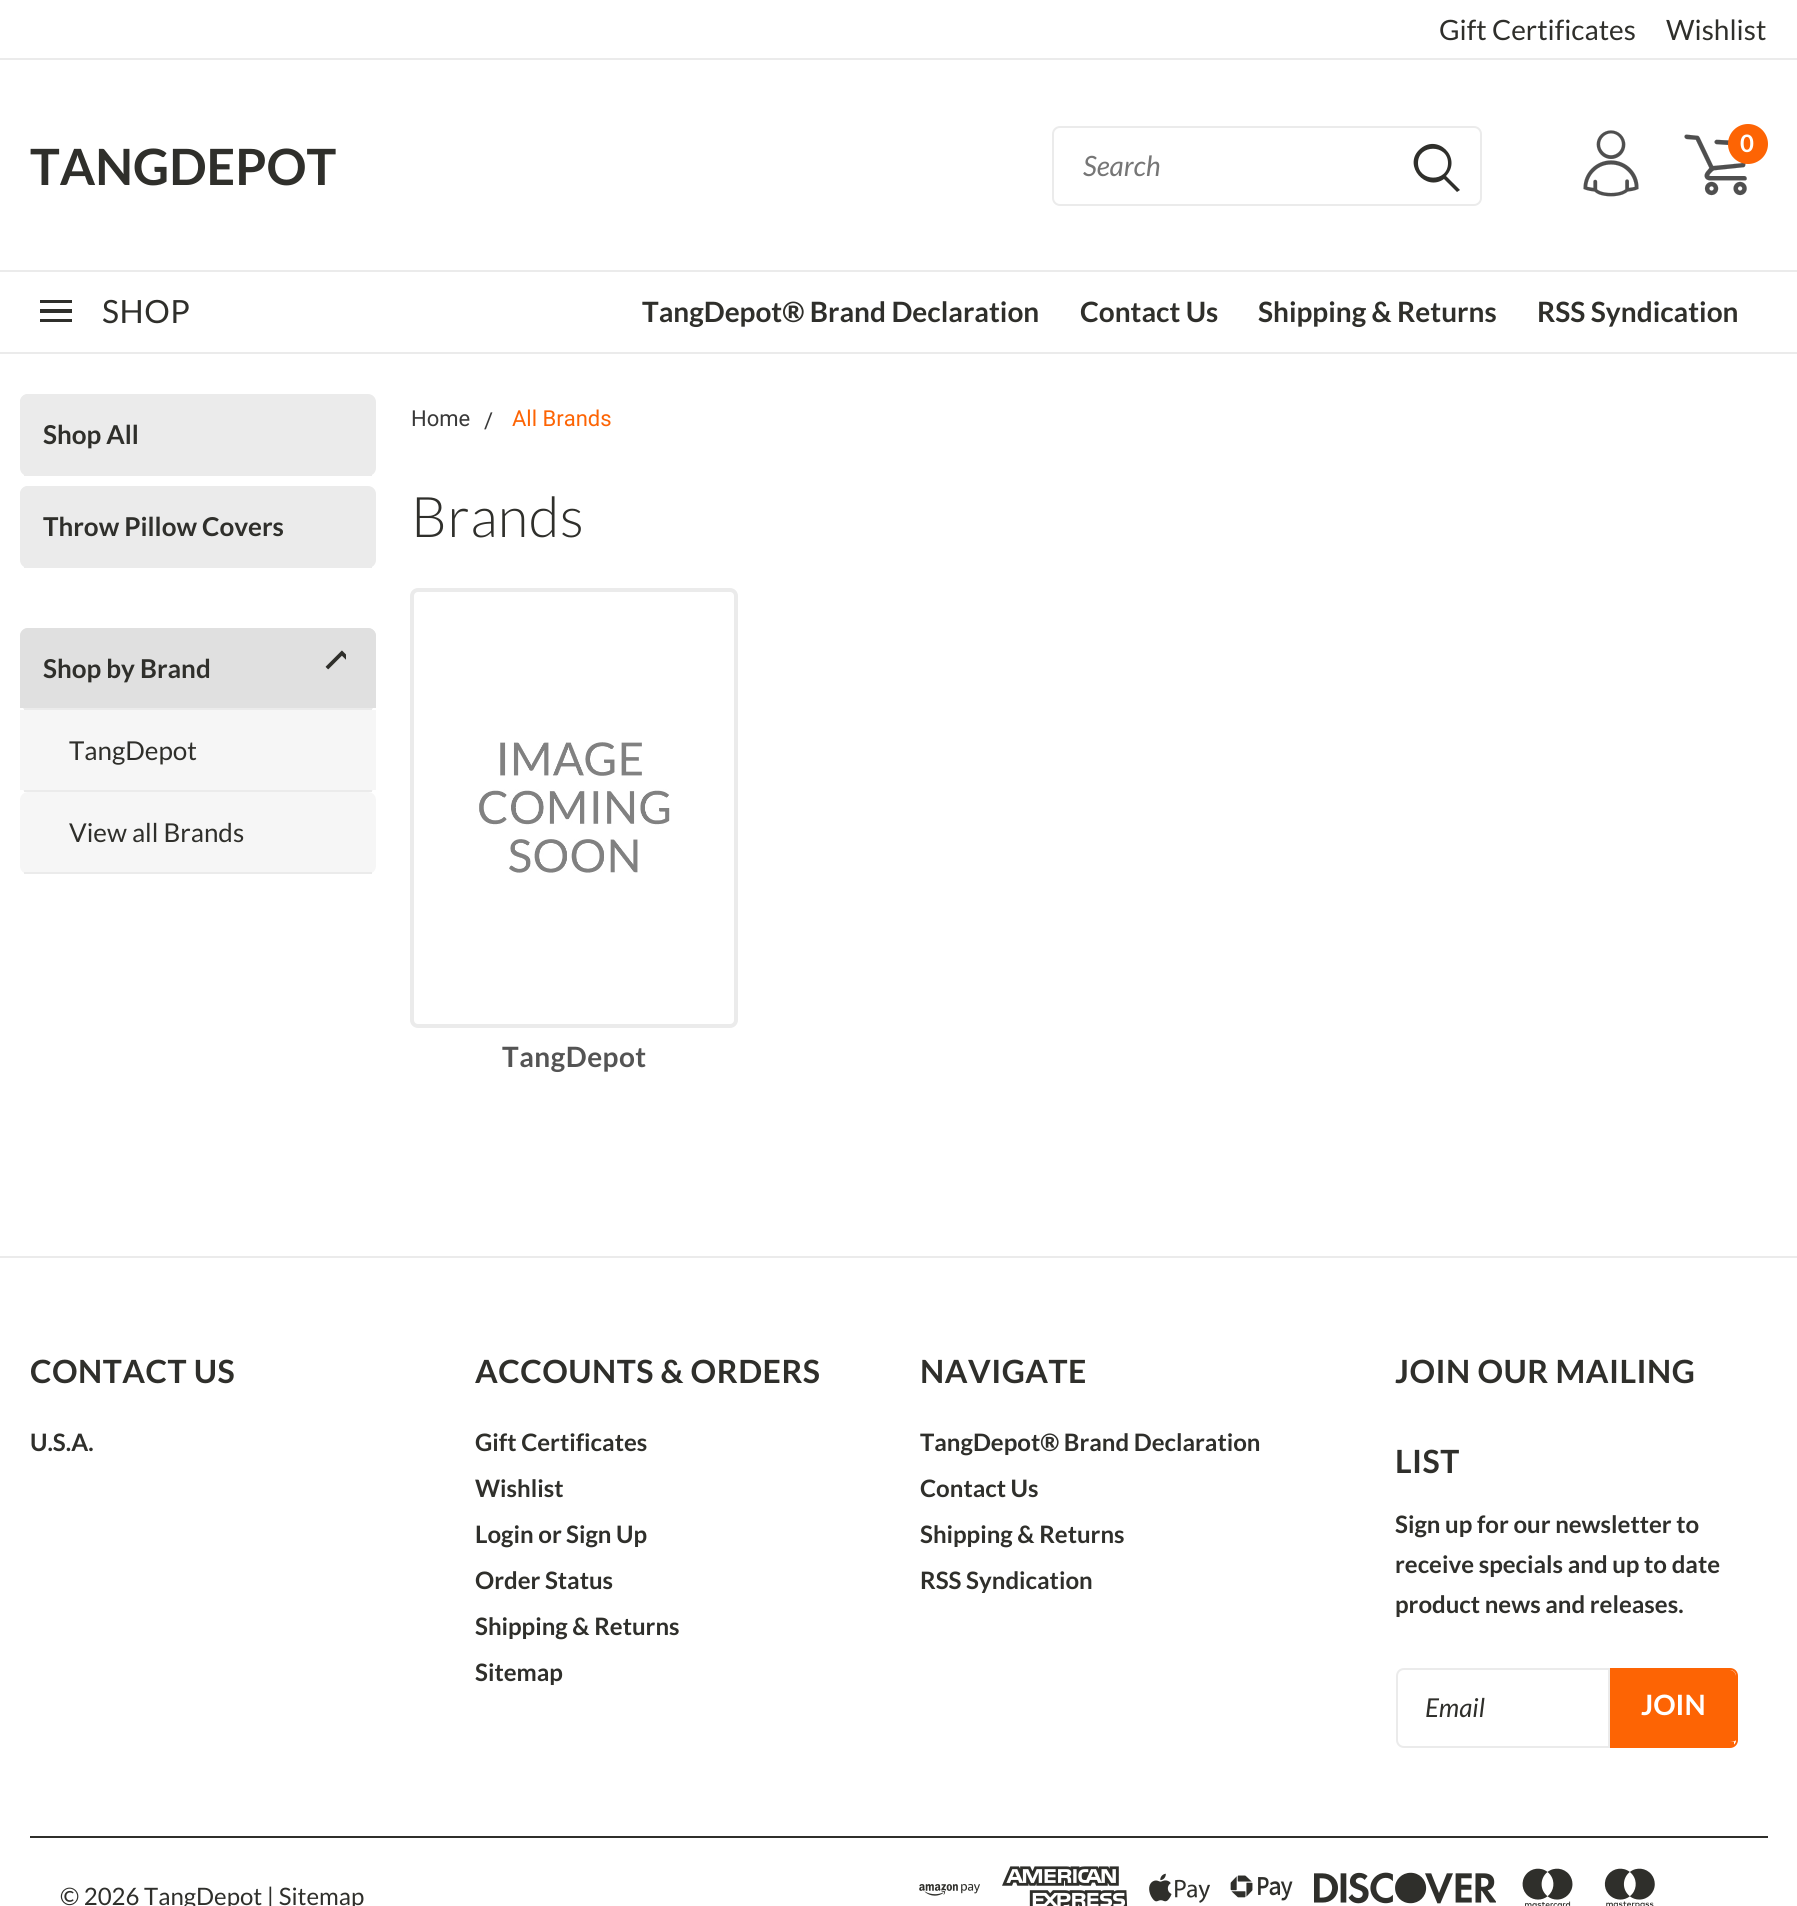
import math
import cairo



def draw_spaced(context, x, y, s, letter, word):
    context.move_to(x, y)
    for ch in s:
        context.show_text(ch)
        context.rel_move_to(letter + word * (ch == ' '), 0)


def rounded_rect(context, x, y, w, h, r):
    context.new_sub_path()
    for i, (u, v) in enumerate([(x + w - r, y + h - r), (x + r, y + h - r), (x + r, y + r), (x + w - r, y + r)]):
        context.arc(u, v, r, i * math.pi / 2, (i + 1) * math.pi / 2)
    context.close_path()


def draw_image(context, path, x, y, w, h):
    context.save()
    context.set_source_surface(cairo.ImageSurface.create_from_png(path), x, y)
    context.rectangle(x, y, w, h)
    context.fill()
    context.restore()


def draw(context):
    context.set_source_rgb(1, 1, 1)
    context.paint()
    context.set_source_rgb(235 / 255, 235 / 255, 235 / 255)
    context.rectangle(0, 58, 1797, 2)
    context.fill()
    draw_image(context, "images/1.png", 1583, 130, 56, 67)
    draw_image(context, "images/2.png", 1684, 134, 63, 62)
    context.set_source_rgb(253 / 255, 100 / 255, 4 / 255)
    context.arc(1748, 144, 20, 0, 2 * math.pi)
    context.fill()
    rounded_rect(context, 1053, 127, 428, 78, 7)
    context.set_source_rgb(235 / 255, 235 / 255, 235 / 255)
    context.stroke()
    context.set_source_rgb(47 / 255, 47 / 255, 43 / 255)
    context.new_path()
    context.move_to(1460, 190)
    context.line_to(1446, 176)
    context.curve_to(1463, 158, 1437, 132, 1419, 150)
    context.curve_to(1403, 166, 1426, 192, 1444, 179)
    context.line_to(1457, 192)
    context.close_path()
    context.move_to(1418, 163)
    context.curve_to(1418, 144, 1448, 144, 1448, 163)
    context.curve_to(1448, 183, 1418, 182, 1418, 163)
    context.close_path()
    context.fill()
    context.set_source_rgb(235 / 255, 235 / 255, 235 / 255)
    context.rectangle(0, 270, 1797, 2)
    context.fill()
    context.rectangle(0, 352, 1797, 2)
    context.fill()
    context.set_source_rgb(47 / 255, 47 / 255, 43 / 255)
    context.rectangle(40, 300, 32, 3)
    context.fill()
    context.rectangle(40, 309, 32, 4)
    context.fill()
    context.rectangle(40, 319, 32, 3)
    context.fill()
    context.set_source_rgb(235 / 255, 235 / 255, 235 / 255)
    rounded_rect(context, 20, 394, 356, 82, 8)
    context.fill()
    context.rectangle(24, 475, 348, 1)
    context.fill()
    rounded_rect(context, 20, 394, 302, 80, 8)
    context.fill()
    rounded_rect(context, 20, 486, 356, 82, 8)
    context.fill()
    context.rectangle(24, 567, 348, 1)
    context.fill()
    rounded_rect(context, 20, 486, 302, 80, 8)
    context.fill()
    rounded_rect(context, 20, 628, 356, 82, 8)
    context.fill()
    context.rectangle(24, 709, 348, 1)
    context.fill()
    context.set_source_rgb(224 / 255, 224 / 255, 224 / 255)
    context.new_path()
    context.move_to(28, 628)
    context.line_to(368, 628)
    context.curve_to(372.5, 628, 376, 631.5, 376, 636)
    context.line_to(376, 708)
    context.line_to(20, 708)
    context.line_to(20, 636)
    context.curve_to(20, 631.5, 23.5, 628, 28, 628)
    context.close_path()
    context.fill()
    draw_image(context, "images/3.png", 325, 650, 21, 20)
    context.set_source_rgb(246 / 255, 246 / 255, 246 / 255)
    rounded_rect(context, 20, 710, 356, 82, 8)
    context.fill()
    context.set_source_rgb(235 / 255, 235 / 255, 235 / 255)
    context.rectangle(24, 790, 348, 2)
    context.fill()
    context.set_source_rgb(246 / 255, 246 / 255, 246 / 255)
    context.rectangle(20, 710, 356, 80)
    context.fill()
    rounded_rect(context, 20, 792, 356, 82, 8)
    context.fill()
    context.set_source_rgb(235 / 255, 235 / 255, 235 / 255)
    context.rectangle(24, 872, 348, 2)
    context.fill()
    rounded_rect(context, 412, 590, 324, 436, 6)
    context.set_line_width(4)
    context.stroke()
    draw_image(context, "images/4.png", 479, 742, 191, 131)
    context.rectangle(0, 1256, 1797, 2)
    context.fill()
    context.new_path()
    context.move_to(1404, 1669)
    context.line_to(1609, 1669)
    context.line_to(1609, 1747)
    context.line_to(1404, 1747)
    context.curve_to(1400, 1747, 1397, 1744, 1397, 1740)
    context.line_to(1397, 1676)
    context.curve_to(1397, 1672, 1400, 1669, 1404, 1669)
    context.close_path()
    context.set_line_width(2)
    context.stroke()
    context.set_source_rgb(253 / 255, 100 / 255, 4 / 255)
    context.new_path()
    context.move_to(1612, 1670)
    context.line_to(1730, 1670)
    context.curve_to(1733, 1670, 1736, 1673, 1736, 1676)
    context.line_to(1736, 1740)
    context.curve_to(1736, 1741, 1733, 1742, 1730, 1742)
    context.line_to(1612, 1742)
    context.close_path()
    context.fill()
    context.new_path()
    context.move_to(1611, 1669)
    context.line_to(1730, 1669)
    context.curve_to(1734, 1669, 1737, 1672, 1737, 1676)
    context.line_to(1737, 1740)
    context.curve_to(1737, 1744, 1734, 1747, 1730, 1747)
    context.line_to(1611, 1747)
    context.close_path()
    context.stroke()
    context.rectangle(1610, 1742, 124, 4)
    context.fill()
    context.set_source_rgb(47 / 255, 47 / 255, 43 / 255)
    context.rectangle(30, 1836, 1738, 2)
    context.fill()
    draw_image(context, "images/5.png", 919, 1884, 61, 12)
    draw_image(context, "images/6.png", 1002, 1866, 126, 40)
    draw_image(context, "images/7.png", 1149, 1873, 61, 30)
    draw_image(context, "images/8.png", 1230, 1875, 63, 26)
    draw_image(context, "images/9.png", 1314, 1872, 182, 32)
    draw_image(context, "images/10.png", 1522, 1868, 51, 38)
    draw_image(context, "images/11.png", 1604, 1868, 51, 38)
    context.select_font_face("Lato")
    context.set_font_size(28)
    context.move_to(1439, 40)
    context.show_text("Gift Certificates")
    context.move_to(1666, 40)
    context.show_text("Wishlist")
    context.select_font_face("Lato", cairo.FontSlant.NORMAL, cairo.FontWeight.BOLD)
    context.set_font_size(24)
    context.set_source_rgb(1, 1, 1)
    context.move_to(1740, 152)
    context.show_text("0")
    context.set_font_size(50)
    context.set_source_rgb(47 / 255, 47 / 255, 43 / 255)
    context.move_to(30, 185)
    context.show_text("TANGDEPOT")
    context.select_font_face("Lato", cairo.FontSlant.ITALIC)
    context.set_font_size(28)
    context.set_source_rgb(118 / 255, 118 / 255, 118 / 255)
    context.move_to(1083, 176)
    context.show_text("Search")
    context.select_font_face("Lato")
    context.set_font_size(32)
    context.set_source_rgb(47 / 255, 47 / 255, 43 / 255)
    draw_spaced(context, 102, 323, "SHOP", 0.5, 0)
    context.select_font_face("Lato", cairo.FontSlant.NORMAL, cairo.FontWeight.BOLD)
    context.set_font_size(28)
    context.move_to(642, 322)
    context.show_text("TangDepot® Brand Declaration")
    context.move_to(1080, 322)
    context.show_text("Contact Us")
    context.move_to(1258, 322)
    context.show_text("Shipping & Returns")
    context.move_to(1537, 322)
    context.show_text("RSS Syndication")
    context.set_font_size(26)
    context.move_to(43, 444)
    context.show_text("Shop All")
    context.move_to(43, 536)
    context.show_text("Throw Pillow Covers")
    context.move_to(43, 678)
    context.show_text("Shop by Brand")
    context.select_font_face("Lato")
    context.move_to(69, 760)
    context.show_text("TangDepot")
    context.move_to(69, 842)
    context.show_text("View all Brands")
    context.select_font_face("Roboto")
    context.set_font_size(22)
    context.set_source_rgb(57 / 255, 57 / 255, 57 / 255)
    context.move_to(411, 426)
    context.show_text("Home")
    context.move_to(484, 428)
    context.show_text("/")
    context.set_source_rgb(253 / 255, 100 / 255, 4 / 255)
    context.move_to(512, 426)
    context.show_text("All Brands")
    context.select_font_face("Lato Light")
    context.set_font_size(56)
    context.set_source_rgb(47 / 255, 47 / 255, 43 / 255)
    draw_spaced(context, 411, 537, "Brands", 0.5, 0)
    context.select_font_face("Lato", cairo.FontSlant.NORMAL, cairo.FontWeight.BOLD)
    context.set_font_size(28)
    context.set_source_rgb(84 / 255, 84 / 255, 84 / 255)
    draw_spaced(context, 502, 1067, "TangDepot", 0.5, 0)
    context.set_font_size(32)
    context.set_source_rgb(47 / 255, 47 / 255, 43 / 255)
    draw_spaced(context, 30, 1383, "CONTACT US", 0.5, 0)
    context.set_font_size(24)
    context.move_to(30, 1451)
    context.show_text("U.S.A.")
    context.set_font_size(32)
    draw_spaced(context, 475, 1383, "ACCOUNTS & ORDERS", 0.5, 0)
    context.set_font_size(24)
    context.move_to(475, 1451)
    context.show_text("Gift Certificates")
    context.move_to(475, 1497)
    context.show_text("Wishlist")
    context.move_to(475, 1543)
    context.show_text("Login or")
    context.move_to(566, 1543)
    context.show_text("Sign Up")
    context.move_to(475, 1589)
    context.show_text("Order Status")
    context.move_to(475, 1635)
    context.show_text("Shipping & Returns")
    context.move_to(475, 1681)
    context.show_text("Sitemap")
    context.set_font_size(32)
    draw_spaced(context, 920, 1383, "NAVIGATE", 0.5, 0)
    context.set_font_size(24)
    context.move_to(920, 1451)
    context.show_text("TangDepot® Brand Declaration")
    context.move_to(920, 1497)
    context.show_text("Contact Us")
    context.move_to(920, 1543)
    context.show_text("Shipping & Returns")
    context.move_to(920, 1589)
    context.show_text("RSS Syndication")
    context.set_font_size(32)
    draw_spaced(context, 1395, 1383, "JOIN OUR MAILING", 0.5, 0)
    draw_spaced(context, 1395, 1473, "LIST", 0.5, 0)
    context.set_font_size(24)
    context.move_to(1395, 1533)
    context.show_text("Sign up for our newsletter to")
    context.move_to(1395, 1573)
    context.show_text("receive specials and up to date")
    context.move_to(1395, 1613)
    context.show_text("product news and releases.")
    context.select_font_face("Lato", cairo.FontSlant.ITALIC)
    context.set_font_size(26)
    context.move_to(1425, 1717)
    context.show_text("Email")
    context.select_font_face("Lato", cairo.FontSlant.NORMAL, cairo.FontWeight.BOLD)
    context.set_font_size(28)
    context.set_source_rgb(1, 1, 1)
    context.move_to(1641, 1715)
    context.show_text("JOIN")
    context.select_font_face("Lato")
    context.set_font_size(24)
    context.set_source_rgb(47 / 255, 47 / 255, 43 / 255)
    context.move_to(60, 1905)
    context.show_text("© 2026 TangDepot | Sitemap")


surface = cairo.ImageSurface(cairo.Format.RGB24, 1797, 1906)
context = cairo.Context(surface)
options = cairo.FontOptions()
options.set_hint_metrics(cairo.HintMetrics.OFF)
options.set_hint_style(cairo.HintStyle.NONE)
context.set_font_options(options)
context.set_miter_limit(4)
draw(context)
surface.write_to_png("out.png")
